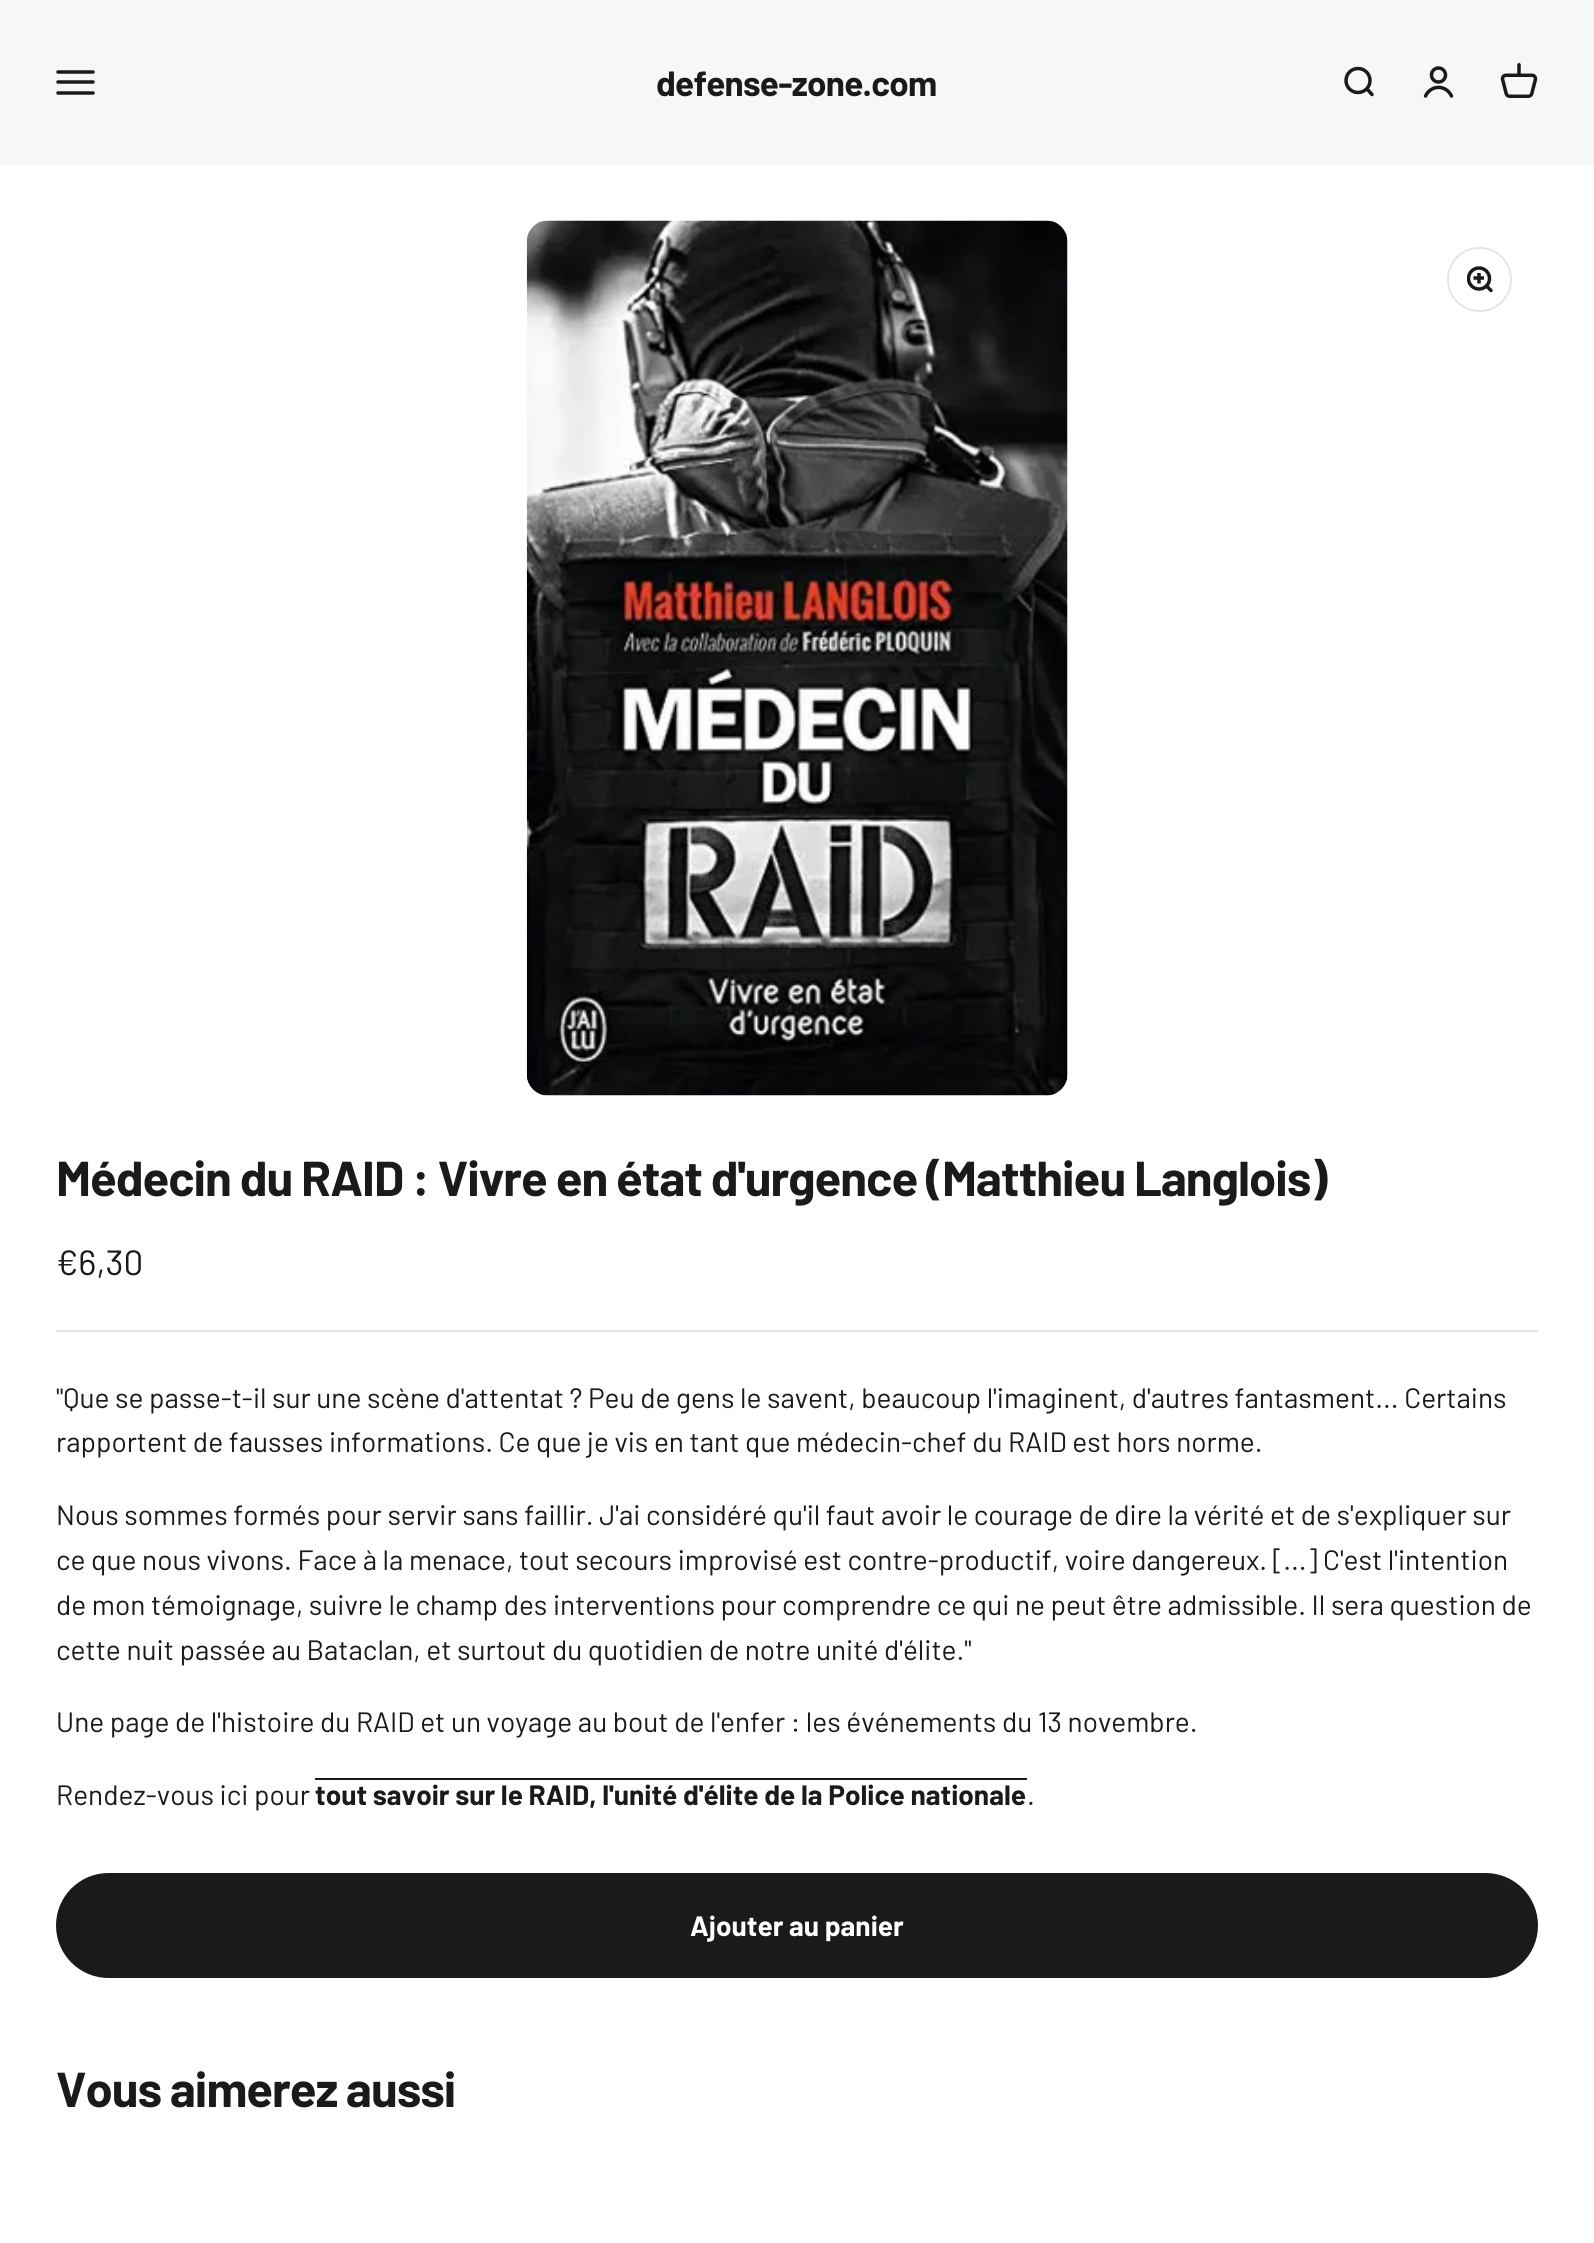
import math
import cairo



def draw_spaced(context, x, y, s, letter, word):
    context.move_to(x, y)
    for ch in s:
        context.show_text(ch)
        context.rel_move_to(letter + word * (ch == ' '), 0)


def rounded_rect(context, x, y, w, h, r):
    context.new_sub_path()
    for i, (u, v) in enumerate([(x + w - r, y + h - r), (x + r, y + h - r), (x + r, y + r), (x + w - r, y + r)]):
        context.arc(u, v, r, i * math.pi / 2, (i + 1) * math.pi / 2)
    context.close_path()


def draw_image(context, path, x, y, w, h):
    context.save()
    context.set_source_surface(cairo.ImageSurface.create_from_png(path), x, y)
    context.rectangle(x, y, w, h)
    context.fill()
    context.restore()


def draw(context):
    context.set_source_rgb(1, 1, 1)
    context.paint()
    context.set_source_rgb(247 / 255, 247 / 255, 247 / 255)
    context.rectangle(0, 0, 1594, 165)
    context.fill()
    context.new_path()
    context.move_to(58, 72)
    context.line_to(93, 72)
    context.move_to(58, 82)
    context.line_to(93, 82)
    context.move_to(58, 93)
    context.line_to(93, 93)
    context.set_source_rgb(26 / 255, 26 / 255, 26 / 255)
    context.set_line_width(3.5)
    context.set_line_cap(cairo.LineCap.ROUND)
    context.stroke()
    context.arc(1358, 80.5, 12, 0, 2 * math.pi)
    context.set_line_cap(cairo.LineCap.BUTT)
    context.stroke()
    context.new_path()
    context.move_to(1367, 89)
    context.line_to(1372, 94.5)
    context.set_line_cap(cairo.LineCap.ROUND)
    context.set_line_join(cairo.LineJoin.ROUND)
    context.stroke()
    context.arc(1438.5, 75, 7, 0, 2 * math.pi)
    context.set_line_cap(cairo.LineCap.BUTT)
    context.set_line_join(cairo.LineJoin.MITER)
    context.stroke()
    context.new_path()
    context.move_to(1425.5, 96)
    context.curve_to(1431, 84.5, 1446, 84.5, 1451.5, 96)
    context.set_line_cap(cairo.LineCap.ROUND)
    context.stroke()
    draw_image(context, "images/1.png", 1500, 63, 38, 35)
    draw_image(context, "images/2.png", 526, 220, 542, 876)
    context.arc(1479.5, 279.5, 31.5, 0, 2 * math.pi)
    context.set_source_rgb(228 / 255, 228 / 255, 228 / 255)
    context.set_line_width(2)
    context.set_line_cap(cairo.LineCap.BUTT)
    context.stroke()
    context.set_source_rgb(1, 1, 1)
    context.arc(1479.5, 279.5, 30.5, 0, 2 * math.pi)
    context.fill()
    context.save()
    context.rectangle(1467, 266, 26, 26)
    context.clip()
    context.arc(1479, 278.5, 10.5, 0, 2 * math.pi)
    context.set_source_rgb(26 / 255, 26 / 255, 26 / 255)
    context.set_line_width(3.5)
    context.stroke()
    context.restore()
    context.new_path()
    context.move_to(1486.5, 286)
    context.line_to(1491, 290.5)
    context.set_source_rgb(26 / 255, 26 / 255, 26 / 255)
    context.set_line_width(3.5)
    context.set_line_cap(cairo.LineCap.ROUND)
    context.set_line_join(cairo.LineJoin.ROUND)
    context.stroke()
    context.new_path()
    context.move_to(1479, 273)
    context.line_to(1479, 283.5)
    context.move_to(1473.5, 278)
    context.line_to(1484, 278)
    context.set_line_cap(cairo.LineCap.BUTT)
    context.set_line_join(cairo.LineJoin.MITER)
    context.stroke()
    context.set_source_rgb(228 / 255, 228 / 255, 228 / 255)
    context.rectangle(56, 1330, 1482, 2)
    context.fill()
    context.set_source_rgb(26 / 255, 26 / 255, 26 / 255)
    context.rectangle(315, 1778, 712, 2)
    context.fill()
    rounded_rect(context, 56, 1873, 1482, 105, 52.5)
    context.fill()
    context.select_font_face("Barlow", cairo.FontSlant.NORMAL, cairo.FontWeight.BOLD)
    context.set_font_size(35)
    draw_spaced(context, 656, 96, "defense-zone.com", -0.75, 0)
    context.set_font_size(49)
    draw_spaced(context, 56, 1196, "Médecin du RAID : Vivre en état d'urgence (Matthieu Langlois)", -0.98, 0)
    context.select_font_face("Barlow")
    context.set_font_size(35)
    context.move_to(56, 1275)
    context.show_text("€6,30")
    context.set_font_size(28)
    context.move_to(56, 1408)
    context.show_text("\"Que se passe-t-il sur une scène d'attentat ? Peu de gens le savent, beaucoup l'imaginent, d'autres fantasment... Certains")
    context.move_to(56, 1452)
    context.show_text("rapportent de fausses informations. Ce que je vis en tant que médecin-chef du RAID est hors norme.")
    context.move_to(56, 1525)
    context.show_text("Nous sommes formés pour servir sans faillir. J'ai considéré qu'il faut avoir le courage de dire la vérité et de s'expliquer sur")
    context.move_to(56, 1570)
    context.show_text("ce que nous vivons. Face à la menace, tout secours improvisé est contre-productif, voire dangereux. [...] C'est l'intention")
    context.move_to(56, 1615)
    context.show_text("de mon témoignage, suivre le champ des interventions pour comprendre ce qui ne peut être admissible. Il sera question de")
    context.move_to(56, 1660)
    context.show_text("cette nuit passée au Bataclan, et surtout du quotidien de notre unité d'élite.\"")
    context.move_to(56, 1732)
    context.show_text("Une page de l'histoire du RAID et un voyage au bout de l'enfer : les événements du 13 novembre.")
    context.move_to(56, 1805)
    context.show_text("Rendez-vous ici pour")
    context.select_font_face("Barlow", cairo.FontSlant.NORMAL, cairo.FontWeight.BOLD)
    context.move_to(315, 1805)
    context.show_text("tout savoir sur le RAID, l'unité d'élite de la Police nationale")
    context.select_font_face("Barlow")
    context.move_to(1027, 1805)
    context.show_text(".")
    context.select_font_face("Barlow", cairo.FontSlant.NORMAL, cairo.FontWeight.BOLD)
    context.set_source_rgb(1, 1, 1)
    context.move_to(690, 1936)
    context.show_text("Ajouter au panier")
    context.set_font_size(49)
    context.set_source_rgb(26 / 255, 26 / 255, 26 / 255)
    draw_spaced(context, 56, 2107, "Vous aimerez aussi", -0.98, 0)


surface = cairo.ImageSurface(cairo.Format.RGB24, 1594, 2243)
context = cairo.Context(surface)
options = cairo.FontOptions()
options.set_hint_metrics(cairo.HintMetrics.OFF)
options.set_hint_style(cairo.HintStyle.NONE)
context.set_font_options(options)
context.set_miter_limit(4)
draw(context)
surface.write_to_png("out.png")
